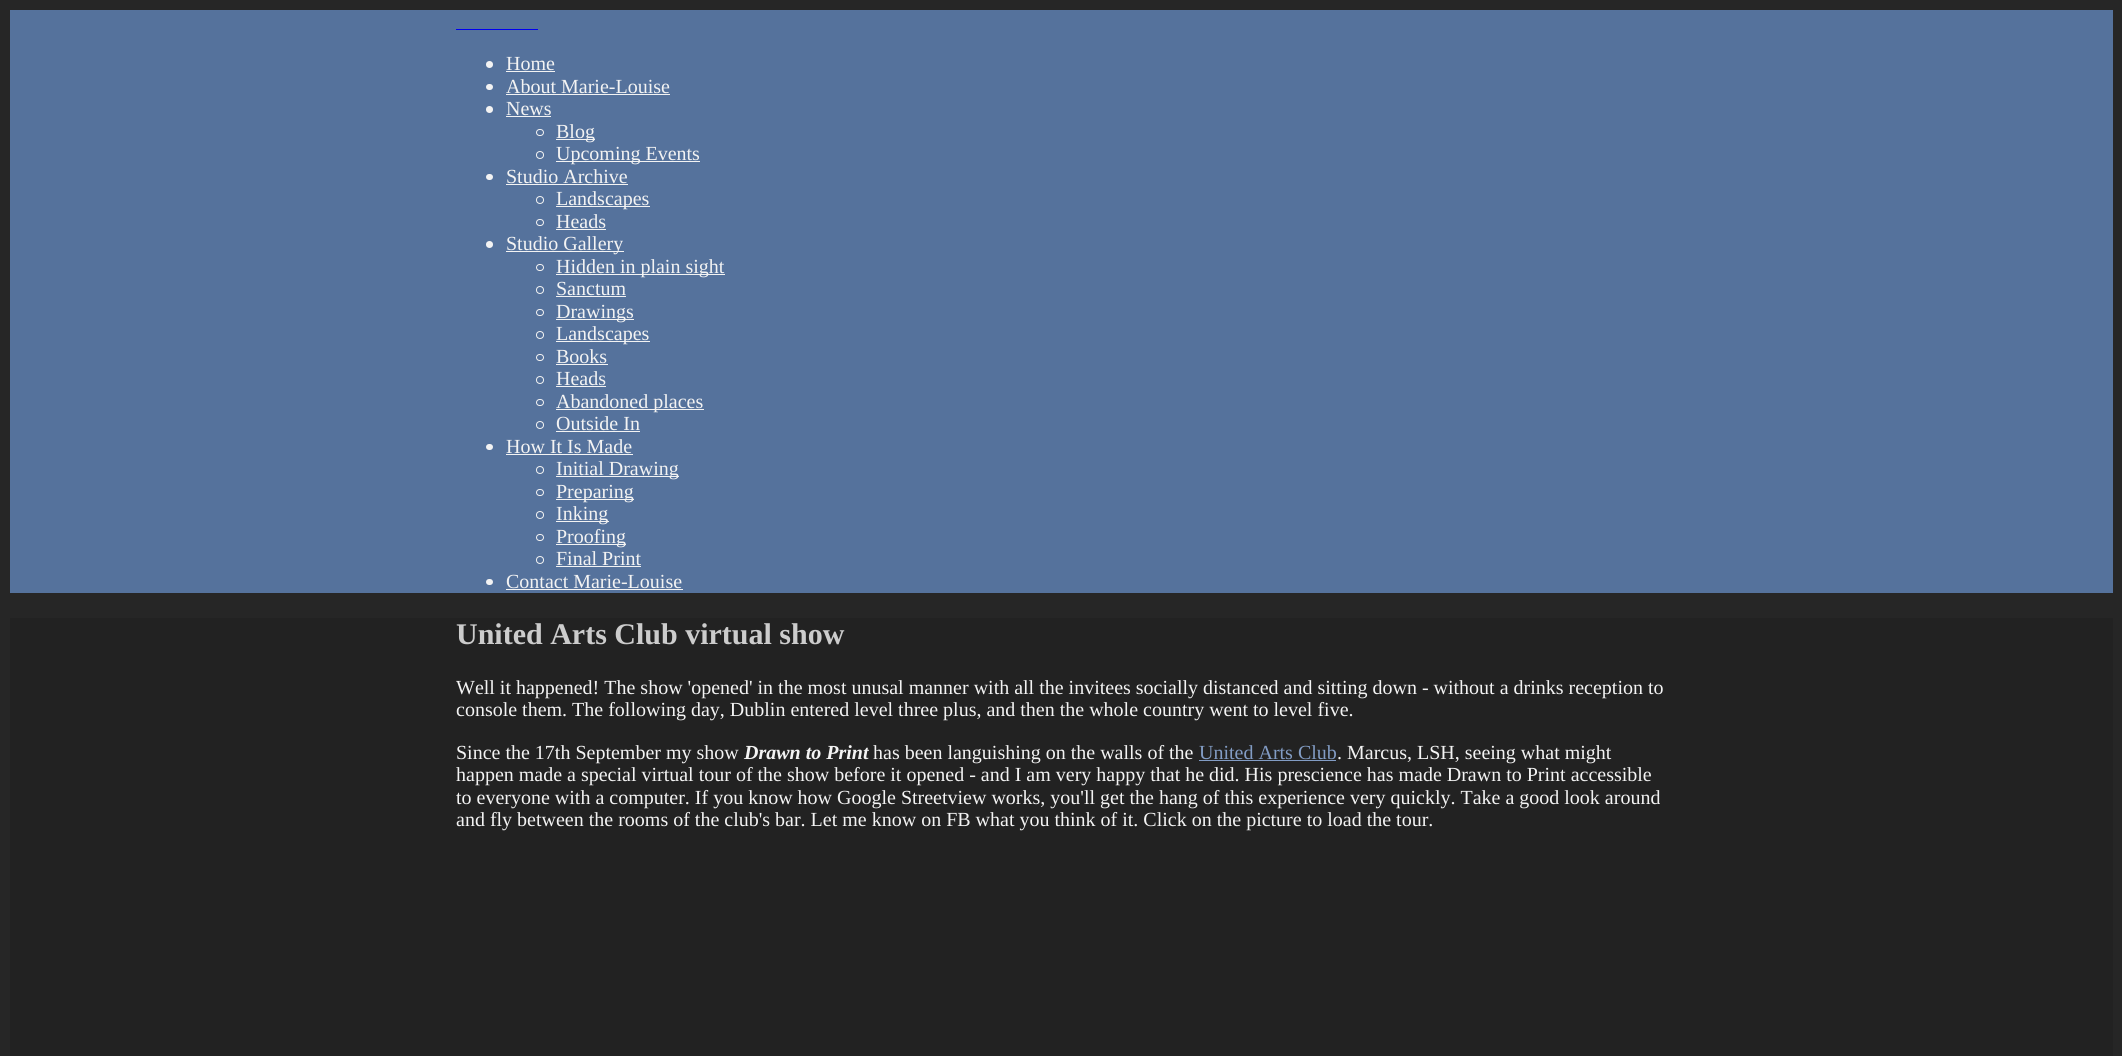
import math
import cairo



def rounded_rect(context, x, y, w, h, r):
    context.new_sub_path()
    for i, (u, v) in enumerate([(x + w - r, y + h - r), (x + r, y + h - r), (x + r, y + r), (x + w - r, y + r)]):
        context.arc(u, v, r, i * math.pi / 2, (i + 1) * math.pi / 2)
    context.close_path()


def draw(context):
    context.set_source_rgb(38 / 255, 38 / 255, 38 / 255)
    context.paint()
    context.set_source_rgb(85 / 255, 114 / 255, 156 / 255)
    context.rectangle(10, 10, 2103, 583)
    context.fill()
    context.set_source_rgb(0, 0, 238 / 255)
    context.rectangle(456, 29, 82, 1)
    context.fill()
    context.set_source_rgb(243 / 255, 243 / 255, 243 / 255)
    context.arc(489.5, 64.5, 3.5, 0, 2 * math.pi)
    context.fill()
    context.rectangle(506, 71, 49, 1)
    context.fill()
    rounded_rect(context, 486, 84, 7, 6, 3)
    context.fill()
    context.rectangle(506, 94, 164, 1)
    context.fill()
    context.arc(489.5, 109.5, 3.5, 0, 2 * math.pi)
    context.fill()
    context.rectangle(506, 116, 45, 1)
    context.fill()
    rounded_rect(context, 536.5, 129.5, 7, 6, 3)
    context.set_line_width(1)
    context.stroke()
    context.rectangle(556, 139, 39, 1)
    context.fill()
    context.arc(540, 155, 3.5, 0, 2 * math.pi)
    context.stroke()
    context.rectangle(556, 161, 144, 1)
    context.fill()
    rounded_rect(context, 486, 174, 7, 6, 3)
    context.fill()
    context.rectangle(506, 184, 122, 1)
    context.fill()
    context.arc(540, 200, 3.5, 0, 2 * math.pi)
    context.stroke()
    context.rectangle(556, 206, 94, 1)
    context.fill()
    rounded_rect(context, 536.5, 219.5, 7, 6, 3)
    context.stroke()
    context.rectangle(556, 229, 50, 1)
    context.fill()
    context.arc(489.5, 244.5, 3.5, 0, 2 * math.pi)
    context.fill()
    context.rectangle(506, 251, 118, 1)
    context.fill()
    rounded_rect(context, 536.5, 264.5, 7, 6, 3)
    context.stroke()
    context.rectangle(556, 274, 169, 1)
    context.fill()
    context.arc(540, 290, 3.5, 0, 2 * math.pi)
    context.stroke()
    context.rectangle(556, 296, 70, 1)
    context.fill()
    rounded_rect(context, 536.5, 309.5, 7, 6, 3)
    context.stroke()
    context.rectangle(556, 319, 78, 1)
    context.fill()
    context.arc(540, 335, 3.5, 0, 2 * math.pi)
    context.stroke()
    context.rectangle(556, 341, 94, 1)
    context.fill()
    rounded_rect(context, 536.5, 354.5, 7, 6, 3)
    context.stroke()
    context.rectangle(556, 364, 52, 1)
    context.fill()
    context.arc(540, 380, 3.5, 0, 2 * math.pi)
    context.stroke()
    context.rectangle(556, 386, 50, 1)
    context.fill()
    rounded_rect(context, 536.5, 399.5, 7, 6, 3)
    context.stroke()
    context.rectangle(556, 409, 148, 1)
    context.fill()
    context.arc(540, 425, 3.5, 0, 2 * math.pi)
    context.stroke()
    context.rectangle(556, 431, 84, 1)
    context.fill()
    rounded_rect(context, 486, 444, 7, 6, 3)
    context.fill()
    context.rectangle(506, 454, 127, 1)
    context.fill()
    context.arc(540, 470, 3.5, 0, 2 * math.pi)
    context.stroke()
    context.rectangle(556, 476, 123, 1)
    context.fill()
    rounded_rect(context, 536.5, 489.5, 7, 6, 3)
    context.stroke()
    context.rectangle(556, 499, 78, 1)
    context.fill()
    context.arc(540, 515, 3.5, 0, 2 * math.pi)
    context.stroke()
    context.rectangle(556, 521, 53, 1)
    context.fill()
    rounded_rect(context, 536.5, 534.5, 7, 6, 3)
    context.stroke()
    context.rectangle(556, 544, 70, 1)
    context.fill()
    context.arc(540, 560, 3.5, 0, 2 * math.pi)
    context.stroke()
    context.rectangle(556, 566, 85, 1)
    context.fill()
    rounded_rect(context, 486, 579, 7, 6, 3)
    context.fill()
    context.rectangle(506, 589, 177, 1)
    context.fill()
    context.set_source_rgb(34 / 255, 34 / 255, 34 / 255)
    context.rectangle(10, 618, 2103, 438)
    context.fill()
    context.set_source_rgb(130 / 255, 156 / 255, 196 / 255)
    context.rectangle(1199, 760, 137, 1)
    context.fill()
    context.select_font_face("Liberation Serif")
    context.set_font_size(20)
    context.set_source_rgb(243 / 255, 243 / 255, 243 / 255)
    context.move_to(506, 70)
    context.show_text("Home")
    context.move_to(506, 93)
    context.show_text("About Marie-Louise")
    context.move_to(506, 115)
    context.show_text("News")
    context.move_to(556, 138)
    context.show_text("Blog")
    context.move_to(556, 160)
    context.show_text("Upcoming Events")
    context.move_to(506, 183)
    context.show_text("Studio Archive")
    context.move_to(556, 205)
    context.show_text("Landscapes")
    context.move_to(556, 228)
    context.show_text("Heads")
    context.move_to(506, 250)
    context.show_text("Studio Gallery")
    context.move_to(556, 273)
    context.show_text("Hidden in plain sight")
    context.move_to(556, 295)
    context.show_text("Sanctum")
    context.move_to(556, 318)
    context.show_text("Drawings")
    context.move_to(556, 340)
    context.show_text("Landscapes")
    context.move_to(556, 363)
    context.show_text("Books")
    context.move_to(556, 385)
    context.show_text("Heads")
    context.move_to(556, 408)
    context.show_text("Abandoned places")
    context.move_to(556, 430)
    context.show_text("Outside In")
    context.move_to(506, 453)
    context.show_text("How It Is Made")
    context.move_to(556, 475)
    context.show_text("Initial Drawing")
    context.move_to(556, 498)
    context.show_text("Preparing")
    context.move_to(556, 520)
    context.show_text("Inking")
    context.move_to(556, 543)
    context.show_text("Proofing")
    context.move_to(556, 565)
    context.show_text("Final Print")
    context.move_to(506, 588)
    context.show_text("Contact Marie-Louise")
    context.select_font_face("Liberation Serif", cairo.FontSlant.NORMAL, cairo.FontWeight.BOLD)
    context.set_font_size(30)
    context.set_source_rgb(204 / 255, 204 / 255, 204 / 255)
    context.move_to(456, 644)
    context.show_text("United Arts Club virtual show")
    context.select_font_face("Liberation Serif")
    context.set_font_size(20)
    context.set_source_rgb(243 / 255, 243 / 255, 243 / 255)
    context.move_to(456, 694)
    context.show_text("Well it happened! The show 'opened' in the most unusal manner with all the invitees socially distanced and sitting down - without a drinks reception to")
    context.move_to(456, 716)
    context.show_text("console them. The following day, Dublin entered level three plus, and then the whole country went to level five.")
    context.move_to(456, 759)
    context.show_text("Since the 17th September my show")
    context.select_font_face("Liberation Serif", cairo.FontSlant.ITALIC, cairo.FontWeight.BOLD)
    context.move_to(744, 759)
    context.show_text("Drawn to Print")
    context.select_font_face("Liberation Serif")
    context.move_to(873, 759)
    context.show_text("has been languishing on the walls of the")
    context.set_source_rgb(130 / 255, 156 / 255, 196 / 255)
    context.move_to(1199, 759)
    context.show_text("United Arts Club")
    context.set_source_rgb(243 / 255, 243 / 255, 243 / 255)
    context.move_to(1337, 759)
    context.show_text(". Marcus, LSH, seeing what might")
    context.move_to(456, 781)
    context.show_text("happen made a special virtual tour of the show before it opened - and I am very happy that he did. His prescience has made Drawn to Print accessible")
    context.move_to(456, 804)
    context.show_text("to everyone with a computer. If you know how Google Streetview works, you'll get the hang of this experience very quickly. Take a good look around")
    context.move_to(456, 826)
    context.show_text("and fly between the rooms of the club's bar. Let me know on FB what you think of it. Click on the picture to load the tour.")


surface = cairo.ImageSurface(cairo.Format.RGB24, 2122, 1056)
context = cairo.Context(surface)
options = cairo.FontOptions()
options.set_hint_metrics(cairo.HintMetrics.OFF)
options.set_hint_style(cairo.HintStyle.NONE)
context.set_font_options(options)
context.set_miter_limit(4)
draw(context)
surface.write_to_png("out.png")
